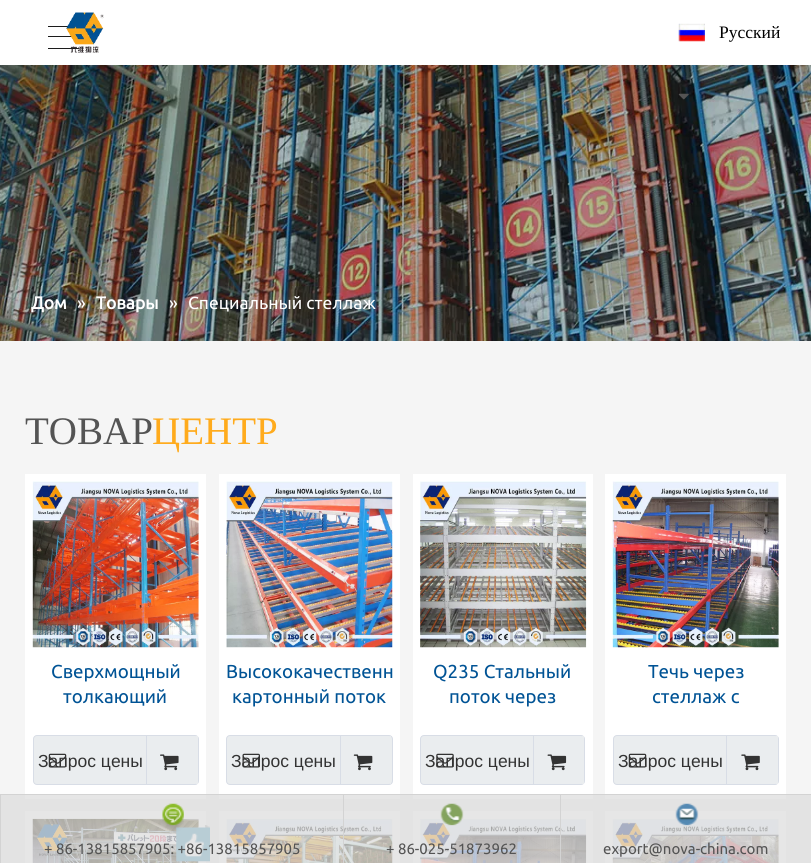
import math
import cairo



def rounded_rect(context, x, y, w, h, r):
    context.new_sub_path()
    for i, (u, v) in enumerate([(x + w - r, y + h - r), (x + r, y + h - r), (x + r, y + r), (x + w - r, y + r)]):
        context.arc(u, v, r, i * math.pi / 2, (i + 1) * math.pi / 2)
    context.close_path()


def draw_image(context, path, x, y, w, h):
    context.save()
    context.set_source_surface(cairo.ImageSurface.create_from_png(path), x, y)
    context.rectangle(x, y, w, h)
    context.fill()
    context.restore()


def draw(context):
    context.set_source_rgb(1, 1, 1)
    context.paint()
    context.set_source_rgb(28 / 255, 28 / 255, 28 / 255)
    context.rectangle(48, 26, 20, 1)
    context.fill()
    context.rectangle(48, 36, 30, 1)
    context.fill()
    context.rectangle(48, 48, 30, 1)
    context.fill()
    draw_image(context, "images/1.png", 66, 12, 38, 41)
    draw_image(context, "images/2.png", 678, 23, 27, 19)
    draw_image(context, "images/4.png", 0, 65, 811, 276)
    draw_image(context, "images/3.png", 678, 93, 11, 7)
    context.set_source_rgb(245 / 255, 245 / 255, 245 / 255)
    context.rectangle(0, 341, 811, 453)
    context.fill()
    context.set_source_rgb(227 / 255, 227 / 255, 227 / 255)
    context.rectangle(1, 795, 810, 68)
    context.fill()
    context.set_source_rgb(1, 1, 1)
    context.rectangle(25, 474, 181, 320)
    context.fill()
    context.set_source_rgb(230 / 255, 230 / 255, 230 / 255)
    context.rectangle(25, 795, 181, 4)
    context.fill()
    draw_image(context, "images/5.png", 32, 481, 167, 167)
    context.set_source_rgb(234 / 255, 237 / 255, 239 / 255)
    rounded_rect(context, 33.5, 735.5, 165, 49, 3.5)
    context.fill_preserve()
    context.set_source_rgb(216 / 255, 221 / 255, 230 / 255)
    context.set_line_width(1)
    context.stroke()
    context.set_source_rgb(234 / 255, 237 / 255, 239 / 255)
    context.rectangle(196, 736, 2, 48)
    context.fill()
    context.set_source_rgb(216 / 255, 221 / 255, 230 / 255)
    context.rectangle(146, 736, 1, 48)
    context.fill()
    draw_image(context, "images/7.png", 160, 754, 19, 17)
    context.set_source_rgb(1, 1, 1)
    context.rectangle(219, 474, 181, 320)
    context.fill()
    context.set_source_rgb(230 / 255, 230 / 255, 230 / 255)
    context.rectangle(219, 795, 181, 4)
    context.fill()
    draw_image(context, "images/8.png", 226, 481, 167, 167)
    context.set_source_rgb(234 / 255, 237 / 255, 239 / 255)
    rounded_rect(context, 226.5, 735.5, 166, 49, 3.5)
    context.fill_preserve()
    context.set_source_rgb(216 / 255, 221 / 255, 230 / 255)
    context.stroke()
    context.set_source_rgb(234 / 255, 237 / 255, 239 / 255)
    context.rectangle(390, 736, 1, 48)
    context.fill()
    context.set_source_rgb(216 / 255, 221 / 255, 230 / 255)
    context.rectangle(340, 736, 1, 48)
    context.fill()
    draw_image(context, "images/10.png", 353, 754, 20, 17)
    context.set_source_rgb(1, 1, 1)
    context.rectangle(413, 474, 180, 320)
    context.fill()
    context.set_source_rgb(230 / 255, 230 / 255, 230 / 255)
    context.rectangle(413, 795, 180, 4)
    context.fill()
    draw_image(context, "images/11.png", 420, 481, 167, 167)
    context.set_source_rgb(234 / 255, 237 / 255, 239 / 255)
    rounded_rect(context, 420.5, 735.5, 164, 49, 3.5)
    context.fill_preserve()
    context.set_source_rgb(216 / 255, 221 / 255, 230 / 255)
    context.stroke()
    context.set_source_rgb(234 / 255, 237 / 255, 239 / 255)
    context.rectangle(582, 736, 2, 48)
    context.fill()
    context.set_source_rgb(216 / 255, 221 / 255, 230 / 255)
    context.rectangle(533, 736, 1, 48)
    context.fill()
    draw_image(context, "images/13.png", 547, 754, 20, 17)
    context.set_source_rgb(1, 1, 1)
    context.rectangle(605, 474, 181, 320)
    context.fill()
    context.set_source_rgb(230 / 255, 230 / 255, 230 / 255)
    context.rectangle(605, 795, 181, 4)
    context.fill()
    draw_image(context, "images/14.png", 612, 481, 167, 167)
    context.set_source_rgb(234 / 255, 237 / 255, 239 / 255)
    rounded_rect(context, 613.5, 735.5, 165, 49, 3.5)
    context.fill_preserve()
    context.set_source_rgb(216 / 255, 221 / 255, 230 / 255)
    context.stroke()
    context.set_source_rgb(234 / 255, 237 / 255, 239 / 255)
    context.rectangle(776, 736, 2, 48)
    context.fill()
    context.set_source_rgb(216 / 255, 221 / 255, 230 / 255)
    context.rectangle(726, 736, 1, 48)
    context.fill()
    draw_image(context, "images/16.png", 741, 754, 19, 17)
    context.set_source_rgb(230 / 255, 230 / 255, 230 / 255)
    context.rectangle(25, 811, 181, 52)
    context.fill()
    draw_image(context, "images/17.png", 32, 818, 167, 45)
    draw_image(context, "images/18.png", 176, 825, 34, 37)
    context.rectangle(219, 811, 181, 52)
    context.fill()
    draw_image(context, "images/19.png", 226, 819, 167, 44)
    context.rectangle(413, 811, 180, 52)
    context.fill()
    draw_image(context, "images/20.png", 420, 819, 167, 44)
    context.rectangle(605, 811, 181, 52)
    context.fill()
    draw_image(context, "images/21.png", 612, 819, 167, 44)
    context.set_source_rgb(211 / 255, 211 / 255, 211 / 255)
    context.rectangle(0, 794, 811, 1)
    context.fill()
    context.rectangle(0, 795, 1, 68)
    context.fill()
    draw_image(context, "images/22.png", 162, 803, 22, 29)
    context.rectangle(343, 795, 1, 68)
    context.fill()
    draw_image(context, "images/23.png", 440, 803, 24, 23)
    context.rectangle(560, 795, 1, 68)
    context.fill()
    draw_image(context, "images/24.png", 675, 803, 24, 23)
    context.select_font_face("Liberation Serif")
    context.set_font_size(17.5)
    context.set_source_rgb(0, 0, 0)
    context.move_to(719, 38)
    context.show_text("Pусский")
    context.select_font_face("Ubuntu", cairo.FontSlant.NORMAL, cairo.FontWeight.BOLD)
    context.set_source_rgb(1, 1, 1)
    context.move_to(31, 309)
    context.show_text("Дом")
    context.select_font_face("Ubuntu")
    context.move_to(77, 309)
    context.show_text("»")
    context.select_font_face("Ubuntu", cairo.FontSlant.NORMAL, cairo.FontWeight.BOLD)
    context.move_to(96, 309)
    context.show_text("Товары")
    context.select_font_face("Ubuntu")
    context.move_to(169, 309)
    context.show_text("»")
    context.move_to(188, 309)
    context.show_text("Специальный стеллаж")
    context.select_font_face("Liberation Serif")
    context.set_font_size(39)
    context.set_source_rgb(84 / 255, 84 / 255, 84 / 255)
    context.move_to(25, 444)
    context.show_text("ТОВАР")
    context.set_source_rgb(1, 171 / 255, 29 / 255)
    context.move_to(152, 444)
    context.show_text("ЦЕНТР")
    context.select_font_face("Ubuntu")
    context.set_font_size(18.75)
    context.set_source_rgb(0, 83 / 255, 149 / 255)
    context.move_to(51, 678)
    context.show_text("Сверхмощный")
    context.move_to(63, 703)
    context.show_text("толкающий")
    context.select_font_face("Liberation Sans")
    context.set_font_size(17.5)
    context.set_source_rgb(51 / 255, 51 / 255, 51 / 255)
    context.move_to(38, 767)
    context.show_text("Запрос цены")
    draw_image(context, "images/6.png", 48, 753, 19, 15)
    context.select_font_face("Ubuntu")
    context.set_font_size(18.75)
    context.set_source_rgb(0, 83 / 255, 149 / 255)
    context.move_to(226, 678)
    context.show_text("Высококачественн")
    context.move_to(232, 703)
    context.show_text("картонный поток")
    context.select_font_face("Liberation Sans")
    context.set_font_size(17.5)
    context.set_source_rgb(51 / 255, 51 / 255, 51 / 255)
    context.move_to(231, 767)
    context.show_text("Запрос цены")
    draw_image(context, "images/9.png", 242, 753, 18, 15)
    context.select_font_face("Ubuntu")
    context.set_font_size(18.75)
    context.set_source_rgb(0, 83 / 255, 149 / 255)
    context.move_to(433, 678)
    context.show_text("Q235 Стальный")
    context.move_to(449, 703)
    context.show_text("поток через")
    context.select_font_face("Liberation Sans")
    context.set_font_size(17.5)
    context.set_source_rgb(51 / 255, 51 / 255, 51 / 255)
    context.move_to(425, 767)
    context.show_text("Запрос цены")
    draw_image(context, "images/12.png", 436, 753, 18, 15)
    context.select_font_face("Ubuntu")
    context.set_font_size(18.75)
    context.set_source_rgb(0, 83 / 255, 149 / 255)
    context.move_to(648, 678)
    context.show_text("Течь через")
    context.move_to(652, 703)
    context.show_text("стеллаж с")
    context.select_font_face("Liberation Sans")
    context.set_font_size(17.5)
    context.set_source_rgb(51 / 255, 51 / 255, 51 / 255)
    context.move_to(618, 767)
    context.show_text("Запрос цены")
    draw_image(context, "images/15.png", 628, 753, 19, 15)
    context.select_font_face("Ubuntu")
    context.set_font_size(15)
    context.set_source_rgb(84 / 255, 84 / 255, 84 / 255)
    context.move_to(44, 854)
    context.show_text("+ 86-13815857905: +86-13815857905")
    context.move_to(386, 854)
    context.show_text("+ 86-025-51873962")
    context.move_to(603, 854)
    context.show_text("export@nova-china.com")


surface = cairo.ImageSurface(cairo.Format.RGB24, 811, 863)
context = cairo.Context(surface)
options = cairo.FontOptions()
options.set_hint_metrics(cairo.HintMetrics.OFF)
options.set_hint_style(cairo.HintStyle.NONE)
context.set_font_options(options)
context.set_miter_limit(4)
draw(context)
surface.write_to_png("out.png")
